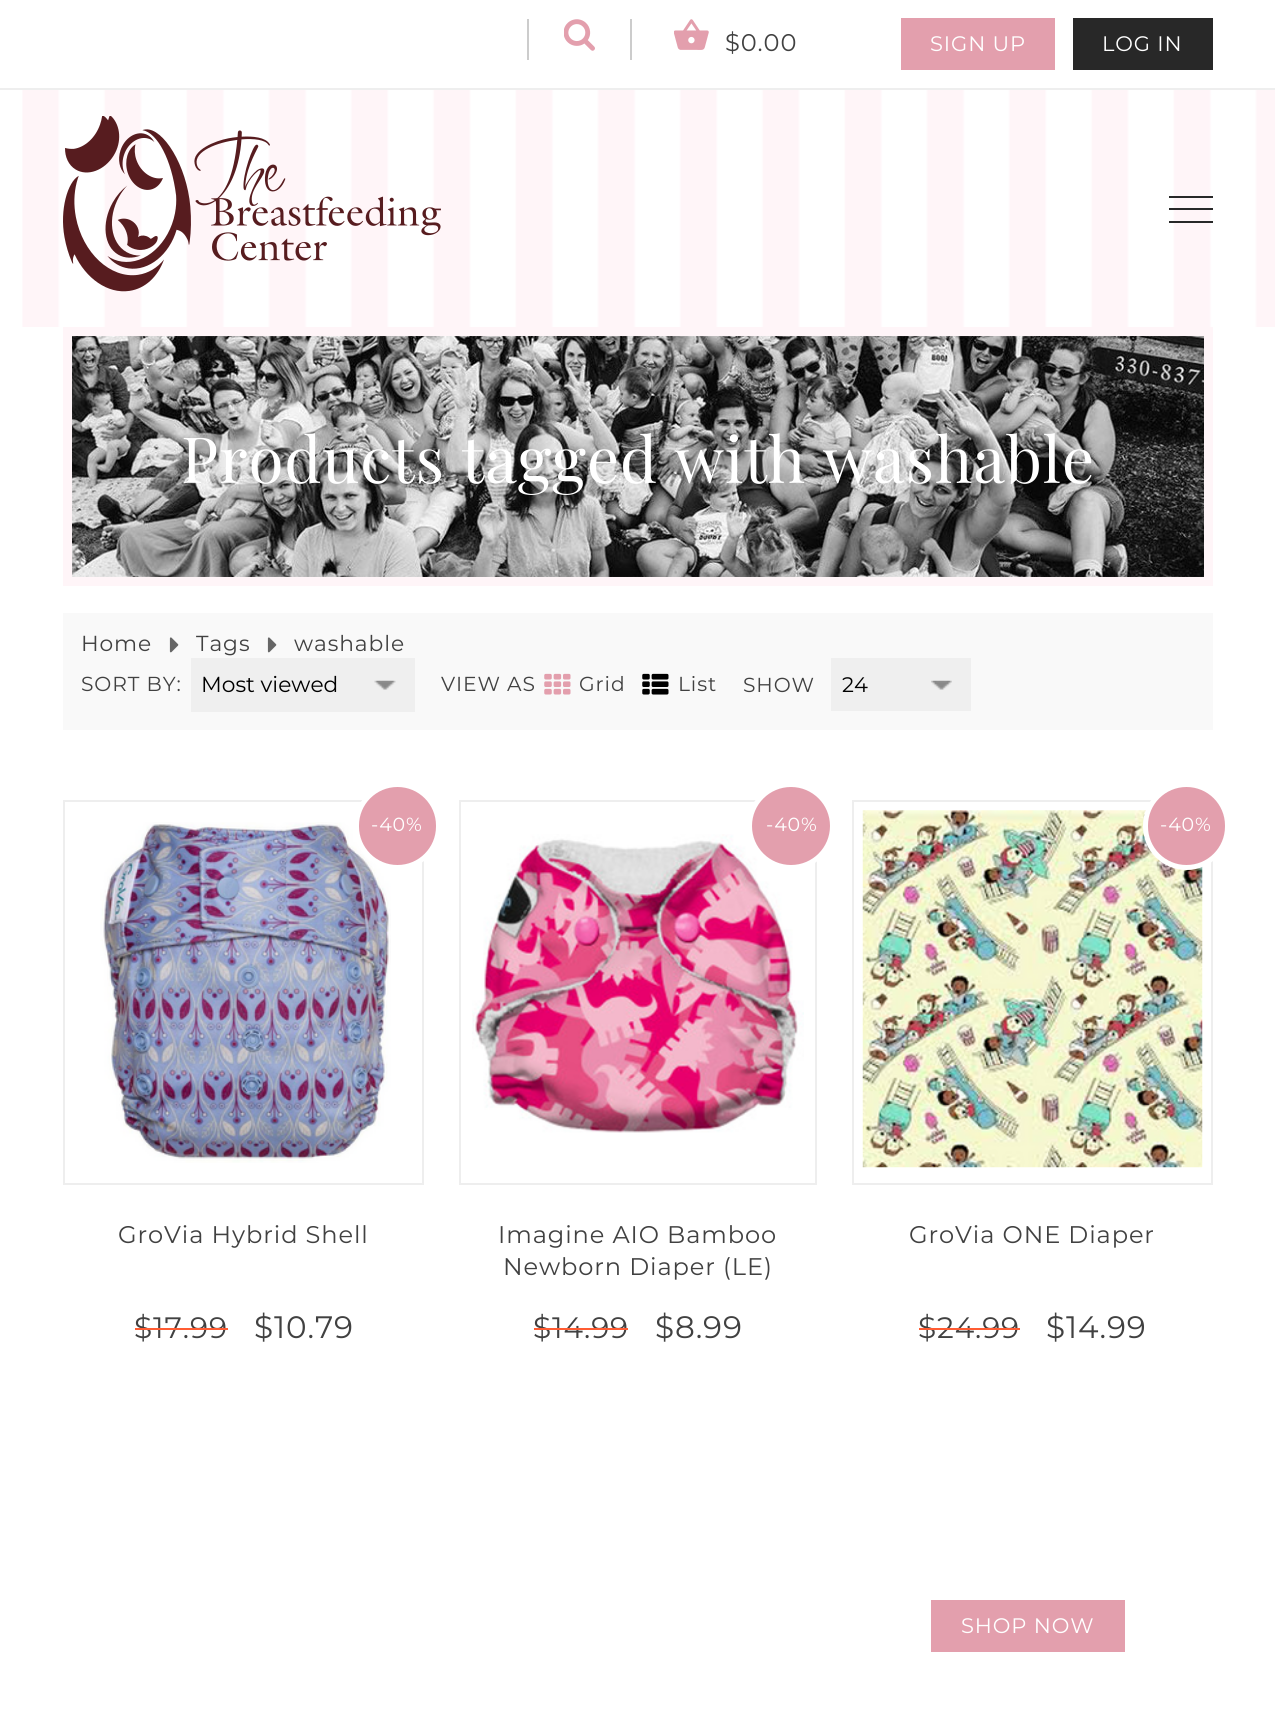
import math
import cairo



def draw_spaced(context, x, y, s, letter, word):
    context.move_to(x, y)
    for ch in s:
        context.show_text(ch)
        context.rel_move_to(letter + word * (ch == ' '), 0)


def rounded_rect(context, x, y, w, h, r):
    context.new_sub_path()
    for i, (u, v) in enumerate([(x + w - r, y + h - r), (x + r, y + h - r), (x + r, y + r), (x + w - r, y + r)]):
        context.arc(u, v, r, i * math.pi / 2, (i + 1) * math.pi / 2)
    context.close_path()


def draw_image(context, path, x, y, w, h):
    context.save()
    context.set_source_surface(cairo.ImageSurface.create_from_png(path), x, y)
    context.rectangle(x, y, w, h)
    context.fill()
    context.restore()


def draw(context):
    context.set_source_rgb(1, 1, 1)
    context.paint()
    context.set_source_rgb(204 / 255, 204 / 255, 204 / 255)
    context.rectangle(630, 19, 2, 41)
    context.fill()
    context.rectangle(527, 19, 2, 41)
    context.fill()
    draw_image(context, "images/1.png", 564, 19, 31, 32)
    draw_image(context, "images/2.png", 674, 19, 35, 31)
    context.set_source_rgb(227 / 255, 159 / 255, 173 / 255)
    context.rectangle(901, 18, 154, 52)
    context.fill()
    context.set_source_rgb(40 / 255, 40 / 255, 40 / 255)
    context.rectangle(1073, 18, 140, 52)
    context.fill()
    draw_image(context, "images/3.png", 22, 90, 1253, 237)
    context.set_source_rgb(238 / 255, 238 / 255, 238 / 255)
    context.rectangle(0, 88, 1275, 2)
    context.fill()
    draw_image(context, "images/4.png", 63, 116, 378, 176)
    context.set_source_rgb(40 / 255, 40 / 255, 40 / 255)
    context.rectangle(1169, 196, 44, 2)
    context.fill()
    context.rectangle(1169, 208, 44, 2)
    context.fill()
    context.rectangle(1169, 221, 44, 2)
    context.fill()
    draw_image(context, "images/5.png", 72, 336, 1132, 241)
    context.rectangle(67.5, 331.5, 1141, 250)
    context.set_source_rgb(1, 245 / 255, 248 / 255)
    context.set_line_width(9)
    context.stroke()
    context.set_source_rgb(249 / 255, 249 / 255, 249 / 255)
    context.rectangle(63, 613, 1150, 117)
    context.fill()
    draw_image(context, "images/6.png", 169, 637, 10, 16)
    draw_image(context, "images/6.png", 267, 637, 10, 16)
    context.set_source_rgb(239 / 255, 239 / 255, 239 / 255)
    context.rectangle(191, 658, 224, 54)
    context.fill()
    draw_image(context, "images/7.png", 374, 680, 22, 10)
    draw_image(context, "images/8.png", 544, 673, 27, 22)
    draw_image(context, "images/9.png", 642, 673, 27, 22)
    context.rectangle(831, 658, 140, 53)
    context.fill()
    draw_image(context, "images/10.png", 931, 680, 21, 10)
    context.rectangle(64, 801, 359, 383)
    context.set_source_rgb(238 / 255, 238 / 255, 238 / 255)
    context.set_line_width(2)
    context.stroke()
    draw_image(context, "images/11.png", 100, 822, 291, 341)
    context.set_source_rgb(227 / 255, 159 / 255, 173 / 255)
    rounded_rect(context, 356.5, 784.5, 82, 83, 41)
    context.fill_preserve()
    context.set_source_rgb(1, 1, 1)
    context.set_line_width(5)
    context.stroke()
    context.rectangle(460, 801, 356, 383)
    context.set_source_rgb(238 / 255, 238 / 255, 238 / 255)
    context.set_line_width(2)
    context.stroke()
    draw_image(context, "images/12.png", 472, 834, 332, 299)
    context.set_source_rgb(227 / 255, 159 / 255, 173 / 255)
    context.arc(791, 826, 41.5, 0, 2 * math.pi)
    context.fill_preserve()
    context.set_source_rgb(1, 1, 1)
    context.set_line_width(5)
    context.stroke()
    context.rectangle(853, 801, 359, 383)
    context.set_source_rgb(238 / 255, 238 / 255, 238 / 255)
    context.set_line_width(2)
    context.stroke()
    draw_image(context, "images/13.png", 862, 810, 341, 358)
    context.set_source_rgb(227 / 255, 159 / 255, 173 / 255)
    rounded_rect(context, 1145.5, 784.5, 82, 83, 41)
    context.fill_preserve()
    context.set_source_rgb(1, 1, 1)
    context.set_line_width(5)
    context.stroke()
    context.set_source_rgb(227 / 255, 159 / 255, 173 / 255)
    context.rectangle(931, 1600, 194, 52)
    context.fill()
    context.select_font_face("Montserrat")
    context.set_font_size(24.1)
    context.set_source_rgb(65 / 255, 65 / 255, 65 / 255)
    draw_spaced(context, 725, 51, "$0.00", 0.9, 0)
    context.set_font_size(21)
    context.set_source_rgb(1, 1, 1)
    draw_spaced(context, 930, 51, "SIGN UP", 0.9, 0)
    draw_spaced(context, 1102, 51, "LOG IN", 0.9, 0)
    context.select_font_face("Playfair Display")
    context.set_font_size(63.75)
    draw_spaced(context, 181, 483, "Products tagged with washable", 0.9, 0)
    context.select_font_face("Montserrat")
    context.set_font_size(21.75)
    context.set_source_rgb(65 / 255, 65 / 255, 65 / 255)
    draw_spaced(context, 81, 651, "Home", 0.9, 0)
    draw_spaced(context, 196, 651, "Tags", 0.9, 0)
    draw_spaced(context, 294, 651, "washable", 0.9, 0)
    context.set_font_size(20.25)
    draw_spaced(context, 81, 691, "SORT BY:", 0.9, 0)
    context.set_font_size(21.75)
    context.set_source_rgb(0, 0, 0)
    context.move_to(201, 692)
    context.show_text("Most viewed")
    context.set_font_size(20.25)
    context.set_source_rgb(65 / 255, 65 / 255, 65 / 255)
    draw_spaced(context, 441, 691, "VIEW AS", 0.9, 0)
    draw_spaced(context, 579, 691, "Grid", 0.9, 0)
    draw_spaced(context, 678, 691, "List", 0.9, 0)
    draw_spaced(context, 743, 692, "SHOW", 0.9, 0)
    context.set_font_size(21)
    context.set_source_rgb(0, 0, 0)
    context.move_to(842, 692)
    context.show_text("24")
    context.set_font_size(19)
    context.set_source_rgb(1, 1, 1)
    draw_spaced(context, 371, 831, "-40%", 0.9, 0)
    context.set_font_size(24.1)
    context.set_source_rgb(65 / 255, 65 / 255, 65 / 255)
    draw_spaced(context, 118, 1243, "GroVia Hybrid Shell", 0.9, 0)
    context.set_font_size(29.5)
    draw_spaced(context, 134, 1338, "$17.99", 0.9, 0)
    context.set_source_rgb(1, 92 / 255, 51 / 255)
    context.rectangle(135, 1328, 93, 2)
    context.fill()
    context.set_font_size(31)
    context.set_source_rgb(65 / 255, 65 / 255, 65 / 255)
    draw_spaced(context, 254, 1338, "$10.79", 0.9, 0)
    context.set_font_size(19)
    context.set_source_rgb(1, 1, 1)
    draw_spaced(context, 766, 831, "-40%", 0.9, 0)
    context.set_font_size(24.1)
    context.set_source_rgb(65 / 255, 65 / 255, 65 / 255)
    draw_spaced(context, 498, 1243, "Imagine AIO Bamboo", 0.9, 0)
    draw_spaced(context, 503, 1275, "Newborn Diaper (LE)", 0.9, 0)
    context.set_font_size(29.5)
    draw_spaced(context, 533, 1338, "$14.99", 0.9, 0)
    context.set_source_rgb(1, 92 / 255, 51 / 255)
    context.rectangle(534, 1328, 94, 2)
    context.fill()
    context.set_font_size(31)
    context.set_source_rgb(65 / 255, 65 / 255, 65 / 255)
    draw_spaced(context, 655, 1338, "$8.99", 0.9, 0)
    context.set_font_size(19)
    context.set_source_rgb(1, 1, 1)
    draw_spaced(context, 1160, 831, "-40%", 0.9, 0)
    context.set_font_size(24.1)
    context.set_source_rgb(65 / 255, 65 / 255, 65 / 255)
    draw_spaced(context, 909, 1243, "GroVia ONE Diaper", 0.9, 0)
    context.set_font_size(29.5)
    draw_spaced(context, 918, 1338, "$24.99", 0.9, 0)
    context.set_source_rgb(1, 92 / 255, 51 / 255)
    context.rectangle(919, 1328, 101, 2)
    context.fill()
    context.set_font_size(31)
    context.set_source_rgb(65 / 255, 65 / 255, 65 / 255)
    draw_spaced(context, 1046, 1338, "$14.99", 0.9, 0)
    context.set_font_size(21)
    context.set_source_rgb(1, 1, 1)
    draw_spaced(context, 961, 1633, "SHOP NOW", 0.9, 0)


surface = cairo.ImageSurface(cairo.Format.RGB24, 1275, 1728)
context = cairo.Context(surface)
options = cairo.FontOptions()
options.set_hint_metrics(cairo.HintMetrics.OFF)
options.set_hint_style(cairo.HintStyle.NONE)
context.set_font_options(options)
context.set_miter_limit(4)
draw(context)
surface.write_to_png("out.png")
